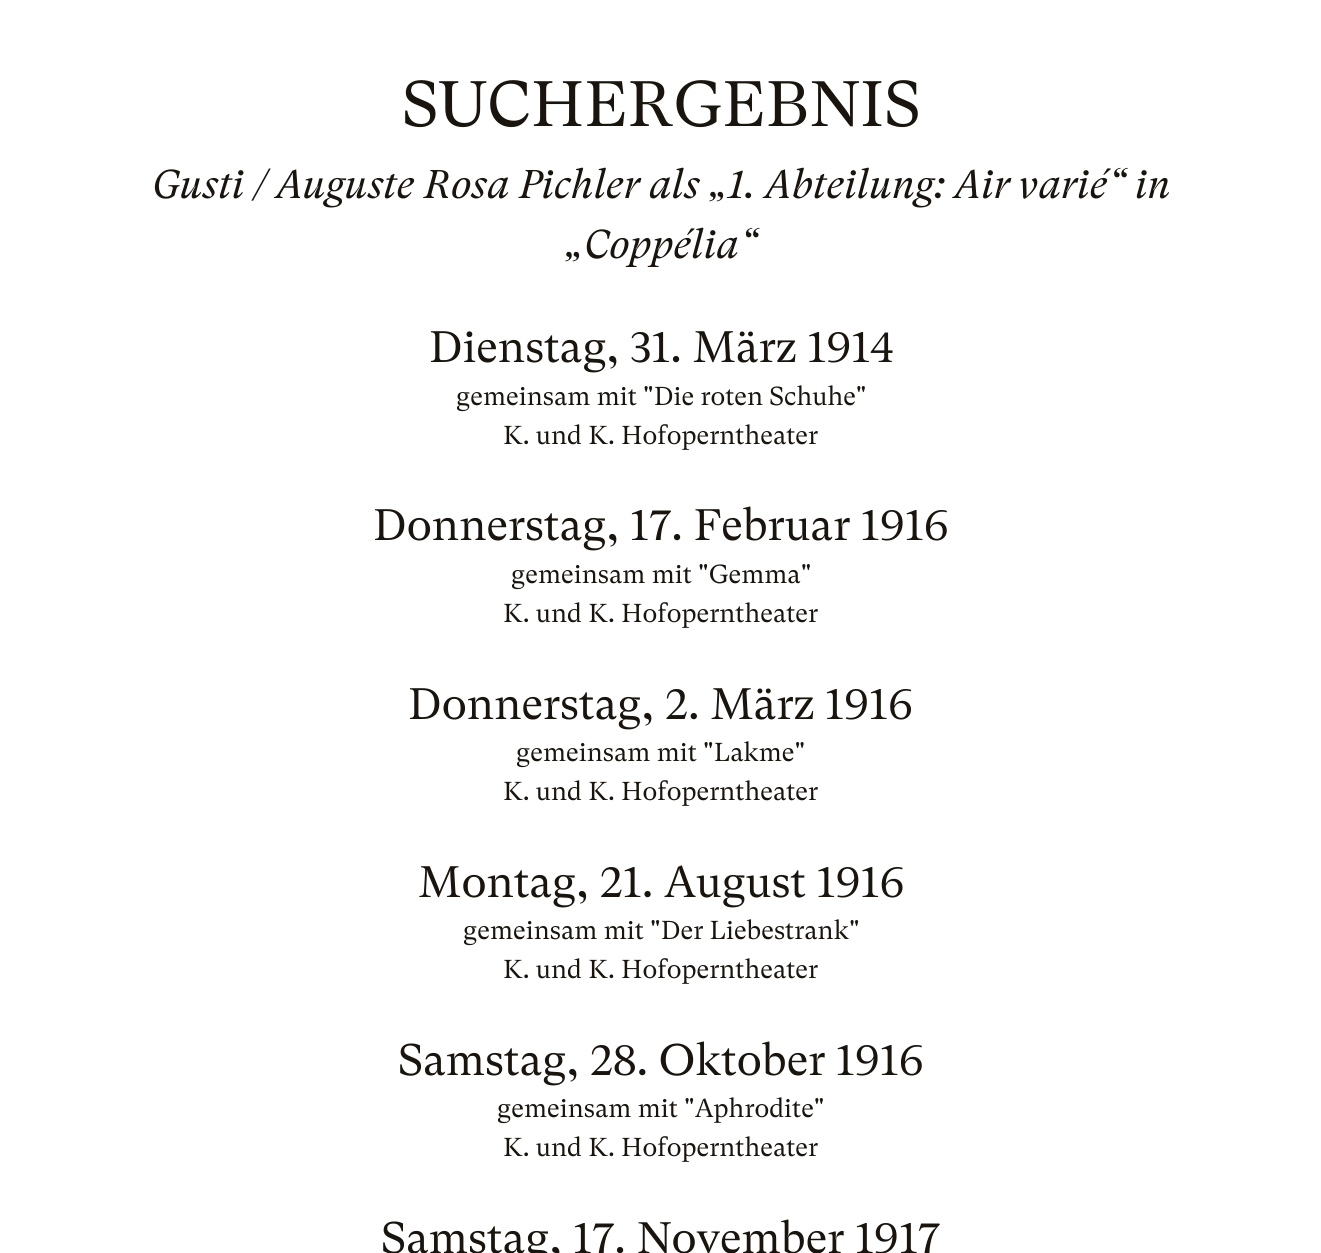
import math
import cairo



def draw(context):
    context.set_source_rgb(1, 1, 1)
    context.paint()
    context.select_font_face("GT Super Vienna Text")
    context.set_font_size(64)
    context.set_source_rgb(25 / 255, 20 / 255, 14 / 255)
    context.move_to(402, 126)
    context.show_text("SUCHERGEBNIS")
    context.select_font_face("GT Super Vienna Text", cairo.FontSlant.ITALIC)
    context.set_font_size(40)
    context.move_to(152, 198)
    context.show_text("Gusti / Auguste Rosa Pichler als „1. Abteilung: Air varié“ in")
    context.move_to(565, 258)
    context.show_text("„Coppélia“")
    context.select_font_face("GT Super Vienna Text")
    context.set_font_size(44)
    context.move_to(429, 362)
    context.show_text("Dienstag, 31. März 1914")
    context.set_font_size(25.9)
    context.move_to(456, 405)
    context.show_text("gemeinsam mit \"Die roten Schuhe\"")
    context.move_to(503, 444)
    context.show_text("K. und K. Hofoperntheater")
    context.set_font_size(44)
    context.move_to(373, 540)
    context.show_text("Donnerstag, 17. Februar 1916")
    context.set_font_size(25.9)
    context.move_to(511, 583)
    context.show_text("gemeinsam mit \"Gemma\"")
    context.move_to(503, 622)
    context.show_text("K. und K. Hofoperntheater")
    context.set_font_size(44)
    context.move_to(408, 719)
    context.show_text("Donnerstag, 2. März 1916")
    context.set_font_size(25.9)
    context.move_to(516, 761)
    context.show_text("gemeinsam mit \"Lakme\"")
    context.move_to(503, 800)
    context.show_text("K. und K. Hofoperntheater")
    context.set_font_size(44)
    context.move_to(418, 897)
    context.show_text("Montag, 21. August 1916")
    context.set_font_size(25.9)
    context.move_to(463, 939)
    context.show_text("gemeinsam mit \"Der Liebestrank\"")
    context.move_to(503, 978)
    context.show_text("K. und K. Hofoperntheater")
    context.set_font_size(44)
    context.move_to(398, 1075)
    context.show_text("Samstag, 28. Oktober 1916")
    context.set_font_size(25.9)
    context.move_to(497, 1117)
    context.show_text("gemeinsam mit \"Aphrodite\"")
    context.move_to(503, 1156)
    context.show_text("K. und K. Hofoperntheater")
    context.set_font_size(44)
    context.move_to(381, 1253)
    context.show_text("Samstag, 17. November 1917")


surface = cairo.ImageSurface(cairo.Format.RGB24, 1321, 1253)
context = cairo.Context(surface)
options = cairo.FontOptions()
options.set_hint_metrics(cairo.HintMetrics.OFF)
options.set_hint_style(cairo.HintStyle.NONE)
context.set_font_options(options)
context.set_miter_limit(4)
draw(context)
surface.write_to_png("out.png")
